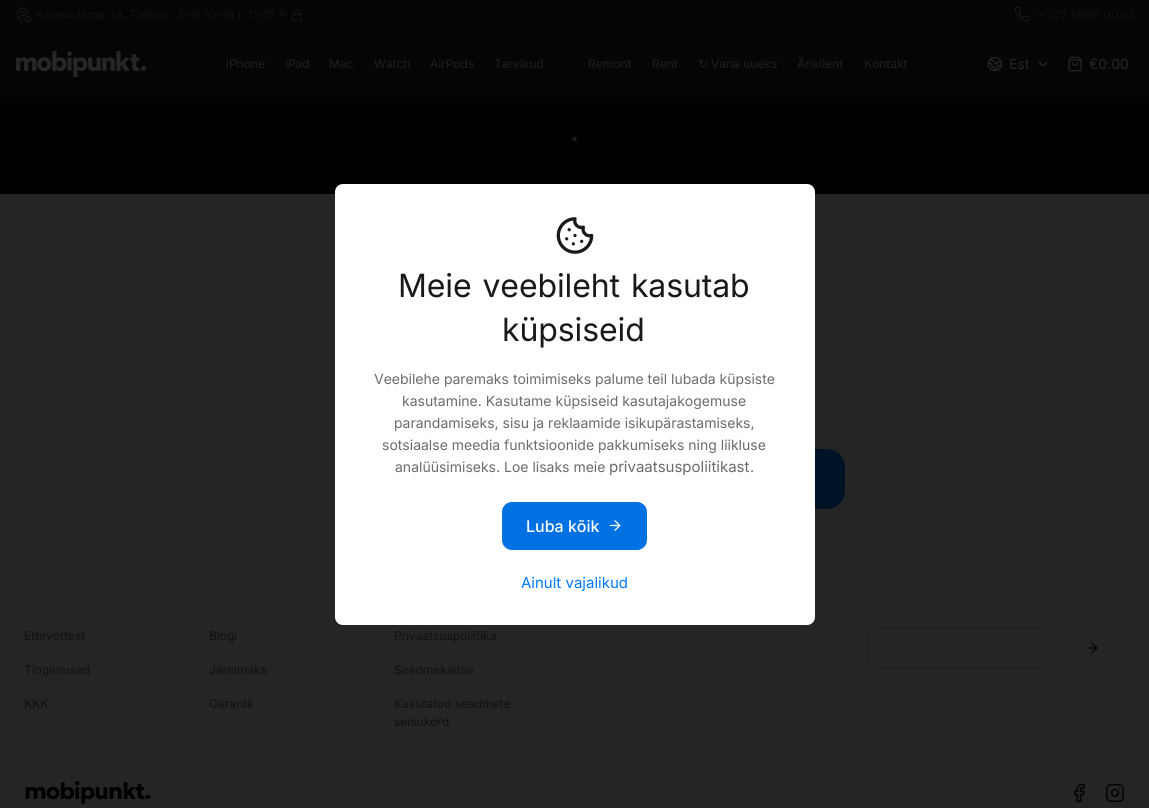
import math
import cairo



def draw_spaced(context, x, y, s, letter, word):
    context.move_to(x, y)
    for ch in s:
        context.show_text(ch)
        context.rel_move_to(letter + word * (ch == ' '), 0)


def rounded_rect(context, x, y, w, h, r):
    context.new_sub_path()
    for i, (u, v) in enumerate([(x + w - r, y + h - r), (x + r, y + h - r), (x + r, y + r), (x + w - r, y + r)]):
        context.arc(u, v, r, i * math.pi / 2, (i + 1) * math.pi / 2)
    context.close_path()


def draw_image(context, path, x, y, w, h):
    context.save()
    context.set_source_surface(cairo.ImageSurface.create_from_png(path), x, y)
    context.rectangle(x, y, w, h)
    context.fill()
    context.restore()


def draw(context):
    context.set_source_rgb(37 / 255, 37 / 255, 37 / 255)
    context.paint()
    context.set_source_rgb(5 / 255, 5 / 255, 5 / 255)
    context.rectangle(0, 0, 1149, 31)
    context.fill()
    context.set_source_rgb(7 / 255, 7 / 255, 7 / 255)
    context.rectangle(0, 31, 1149, 1)
    context.fill()
    draw_image(context, "images/1.png", 16, 7, 16, 16)
    draw_image(context, "images/2.png", 292, 9, 10, 12)
    draw_image(context, "images/3.png", 1014, 6, 16, 16)
    context.set_source_rgb(5 / 255, 5 / 255, 5 / 255)
    context.rectangle(0, 32, 1149, 64)
    context.fill()
    draw_image(context, "images/4.png", 16, 51, 130, 26)
    draw_image(context, "images/5.png", 987, 56, 16, 16)
    context.new_path()
    context.move_to(1039, 62)
    context.line_to(1043, 66)
    context.line_to(1047, 62)
    context.set_source_rgb(38 / 255, 38 / 255, 38 / 255)
    context.set_line_width(1.3)
    context.set_line_cap(cairo.LineCap.ROUND)
    context.set_line_join(cairo.LineJoin.ROUND)
    context.stroke()
    draw_image(context, "images/6.png", 1068, 56, 14, 16)
    context.set_source_rgb(1 / 255, 1 / 255, 1 / 255)
    context.rectangle(0, 97, 1149, 97)
    context.fill()
    context.set_source_rgb(6 / 255, 6 / 255, 6 / 255)
    context.rectangle(0, 96, 1149, 1)
    context.fill()
    context.set_source_rgb(0, 18 / 255, 38 / 255)
    rounded_rect(context, 605, 449, 240, 60, 18)
    context.fill()
    context.set_source_rgb(1, 1, 1)
    rounded_rect(context, 335, 184, 480, 441, 8)
    context.fill()
    draw_image(context, "images/7.png", 556, 217, 38, 37)
    context.set_source_rgb(0, 113 / 255, 227 / 255)
    rounded_rect(context, 502, 502, 145, 48, 10)
    context.fill()
    draw_image(context, "images/8.png", 609, 520, 12, 11)
    rounded_rect(context, 868.5, 628.5, 182, 39, 7.5)
    context.set_source_rgb(30 / 255, 30 / 255, 30 / 255)
    context.set_line_width(1)
    context.set_line_cap(cairo.LineCap.BUTT)
    context.set_line_join(cairo.LineJoin.MITER)
    context.stroke()
    draw_image(context, "images/9.png", 1086, 642, 12, 12)
    draw_image(context, "images/10.png", 25, 781, 126, 23)
    draw_image(context, "images/11.png", 1074, 783, 11, 20)
    draw_image(context, "images/12.png", 1106, 784, 18, 18)
    context.select_font_face("Inter")
    context.set_font_size(12)
    context.set_source_rgb(16 / 255, 16 / 255, 16 / 255)
    context.move_to(36, 19)
    context.show_text("Kalasadama 4a, Tallinn")
    context.move_to(179, 19)
    context.show_text("E–R 10–19 L 11–15 P")
    context.move_to(1038, 19)
    context.show_text("+372 5685 0020")
    context.set_source_rgb(31 / 255, 31 / 255, 31 / 255)
    context.move_to(226, 68)
    context.show_text("iPhone")
    context.move_to(285, 68)
    context.show_text("iPad")
    context.move_to(329, 68)
    context.show_text("Mac")
    context.move_to(374, 68)
    context.show_text("Watch")
    context.move_to(430, 68)
    context.show_text("AirPods")
    context.move_to(494, 68)
    context.show_text("Tarvikud")
    context.move_to(588, 68)
    context.show_text("Remont")
    context.move_to(652, 68)
    context.show_text("Rent")
    context.select_font_face("DejaVu Sans")
    context.move_to(698, 68)
    context.show_text("↻")
    context.select_font_face("Inter")
    context.move_to(711, 68)
    context.show_text("Vana uueks")
    context.move_to(797, 68)
    context.show_text("Äriklient")
    context.move_to(864, 68)
    context.show_text("Kontakt")
    context.set_font_size(14)
    context.set_source_rgb(37 / 255, 37 / 255, 37 / 255)
    context.move_to(1009, 69)
    context.show_text("Est")
    context.move_to(1089, 69)
    context.show_text("€0.00")
    context.set_font_size(32)
    context.set_source_rgb(31 / 255, 31 / 255, 31 / 255)
    draw_spaced(context, 570, 150, "·", -0.1, 0)
    context.set_source_rgb(25 / 255, 25 / 255, 25 / 255)
    draw_spaced(context, 398, 297, "Meie veebileht kasutab", -0.1, 2)
    draw_spaced(context, 502, 341, "küpsiseid", -0.1, 0)
    context.set_font_size(14)
    context.set_source_rgb(107 / 255, 107 / 255, 107 / 255)
    context.move_to(374, 384)
    context.show_text("Veebilehe paremaks toimimiseks palume teil lubada küpsiste")
    context.move_to(402, 406)
    context.show_text("kasutamine. Kasutame küpsiseid kasutajakogemuse")
    context.move_to(394, 428)
    context.show_text("parandamiseks, sisu ja reklaamide isikupärastamiseks,")
    context.move_to(382, 450)
    context.show_text("sotsiaalse meedia funktsioonide pakkumiseks ning liikluse")
    context.move_to(395, 472)
    context.show_text("analüüsimiseks. Loe lisaks meie")
    context.set_font_size(15)
    context.move_to(609, 472)
    context.show_text("privaatsuspoliitikast")
    context.set_font_size(14)
    context.move_to(750, 472)
    context.show_text(".")
    context.select_font_face("Inter Medium")
    context.set_font_size(16)
    context.set_source_rgb(1, 1, 1)
    context.move_to(526, 532)
    context.show_text("Luba kõik")
    context.select_font_face("Inter")
    context.set_font_size(15)
    context.set_source_rgb(0, 122 / 255, 1)
    context.move_to(521, 588)
    context.show_text("Ainult vajalikud")
    context.set_font_size(12)
    context.set_source_rgb(16 / 255, 16 / 255, 16 / 255)
    context.move_to(24, 640)
    context.show_text("Ettevõttest")
    context.move_to(209, 640)
    context.show_text("Blogi")
    context.move_to(394, 640)
    context.show_text("Privaatsuspoliitika")
    context.move_to(24, 674)
    context.show_text("Tingimused")
    context.move_to(209, 674)
    context.show_text("Järelmaks")
    context.move_to(394, 674)
    context.show_text("Seadmekaitse")
    context.move_to(24, 708)
    context.show_text("KKK")
    context.move_to(209, 708)
    context.show_text("Garantii")
    context.move_to(394, 708)
    context.show_text("Kasutatud seadmete")
    context.move_to(394, 726)
    context.show_text("seisukord")


surface = cairo.ImageSurface(cairo.Format.RGB24, 1149, 808)
context = cairo.Context(surface)
options = cairo.FontOptions()
options.set_hint_metrics(cairo.HintMetrics.OFF)
options.set_hint_style(cairo.HintStyle.NONE)
context.set_font_options(options)
context.set_miter_limit(4)
draw(context)
surface.write_to_png("out.png")
